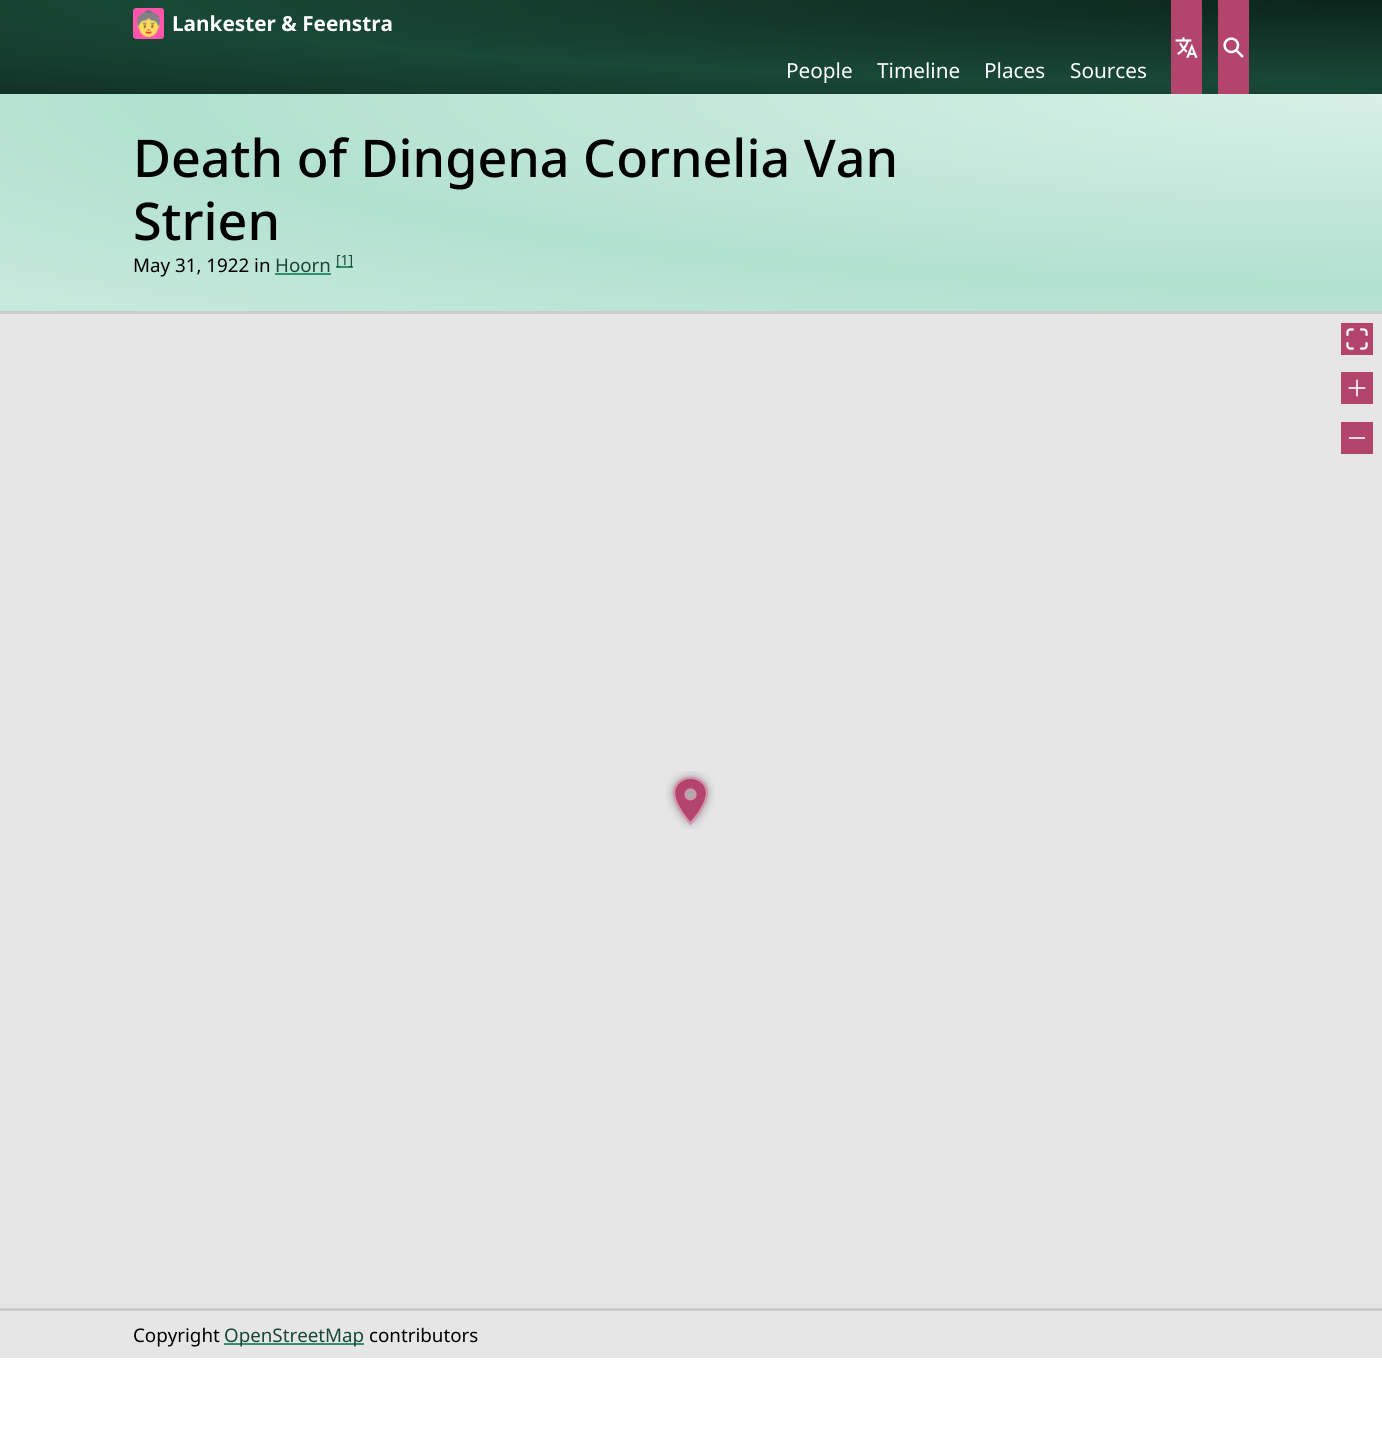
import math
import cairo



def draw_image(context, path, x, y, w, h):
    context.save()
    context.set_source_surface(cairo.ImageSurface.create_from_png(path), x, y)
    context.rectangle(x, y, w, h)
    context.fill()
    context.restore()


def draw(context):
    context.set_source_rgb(1, 1, 1)
    context.paint()
    gradient = cairo.RadialGradient(0, 0, 0, 0, 0, 1)
    gradient.set_matrix(cairo.Matrix(1 / 2443, 0, 0, 1 / 166, -1 * 1382 / 2443, -1 * 0 / 166))
    gradient.add_color_stop_rgba(0, 12 / 255, 36 / 255, 27 / 255, 1)
    gradient.add_color_stop_rgba(0.5, 25 / 255, 72 / 255, 55 / 255, 1)
    gradient.add_color_stop_rgba(1, 12 / 255, 36 / 255, 27 / 255, 1)
    context.set_source(gradient)
    context.rectangle(0, 0, 1382, 94)
    context.fill()
    draw_image(context, "images/1.png", 133, 8, 31, 31)
    context.set_source_rgb(179 / 255, 68 / 255, 108 / 255)
    context.rectangle(1171, 0, 31, 94)
    context.fill()
    draw_image(context, "images/2.png", 1175, 37, 23, 21)
    context.rectangle(1218, 0, 31, 94)
    context.fill()
    draw_image(context, "images/3.png", 1223, 37, 21, 21)
    gradient = cairo.RadialGradient(0, 0, 0, 0, 0, 1)
    gradient.set_matrix(cairo.Matrix(1 / 2443, 0, 0, 1 / 384, -1 * 1382 / 2443, -1 * 94 / 384))
    gradient.add_color_stop_rgba(0, 216 / 255, 240 / 255, 231 / 255, 1)
    gradient.add_color_stop_rgba(0.5, 178 / 255, 225 / 255, 208 / 255, 1)
    gradient.add_color_stop_rgba(1, 216 / 255, 240 / 255, 231 / 255, 1)
    context.set_source(gradient)
    context.rectangle(0, 94, 1382, 217)
    context.fill()
    context.set_source_rgb(50 / 255, 144 / 255, 110 / 255)
    context.rectangle(275, 273, 56, 2)
    context.fill()
    context.rectangle(336, 266, 17, 2)
    context.fill()
    context.set_source_rgb(230 / 255, 230 / 255, 230 / 255)
    context.rectangle(0, 314, 1382, 994)
    context.fill()
    context.set_source_rgb(204 / 255, 204 / 255, 204 / 255)
    context.rectangle(0, 311, 1382, 3)
    context.fill()
    context.rectangle(0, 1308, 1382, 3)
    context.fill()
    context.set_source_rgb(179 / 255, 68 / 255, 108 / 255)
    context.rectangle(1341, 323, 32, 32)
    context.fill()
    draw_image(context, "images/4.png", 1346, 328, 22, 22)
    context.rectangle(1341, 372, 32, 32)
    context.fill()
    context.new_path()
    context.move_to(1357, 380.5)
    context.line_to(1357, 395.5)
    context.move_to(1364.5, 388)
    context.line_to(1349.5, 388)
    context.set_source_rgb(1, 1, 1)
    context.set_line_width(1.6)
    context.set_line_cap(cairo.LineCap.SQUARE)
    context.set_line_join(cairo.LineJoin.ROUND)
    context.stroke()
    context.set_source_rgb(179 / 255, 68 / 255, 108 / 255)
    context.rectangle(1341, 422, 32, 32)
    context.fill()
    context.set_source_rgb(240 / 255, 218 / 255, 226 / 255)
    context.rectangle(1349, 437, 16, 2)
    context.fill()
    draw_image(context, "images/5.png", 666, 771, 49, 59)
    context.set_source_rgb(230 / 255, 230 / 255, 230 / 255)
    context.rectangle(0, 1311, 1382, 47)
    context.fill()
    context.set_source_rgb(50 / 255, 144 / 255, 110 / 255)
    context.rectangle(224, 1343, 140, 2)
    context.fill()
    context.select_font_face("Noto Sans", cairo.FontSlant.NORMAL, cairo.FontWeight.BOLD)
    context.set_font_size(20.75)
    context.set_source_rgb(1, 1, 1)
    context.move_to(172, 31)
    context.show_text("Lankester & Feenstra")
    context.select_font_face("Noto Sans")
    context.move_to(786, 78)
    context.show_text("People")
    context.move_to(877, 78)
    context.show_text("Timeline")
    context.move_to(984, 78)
    context.show_text("Places")
    context.move_to(1070, 78)
    context.show_text("Sources")
    context.select_font_face("Noto Sans Medium")
    context.set_font_size(52)
    context.set_source_rgb(0, 0, 0)
    context.move_to(133, 177)
    context.show_text("Death of Dingena Cornelia Van")
    context.move_to(133, 240)
    context.show_text("Strien")
    context.select_font_face("Noto Sans")
    context.set_font_size(18.75)
    context.move_to(133, 272)
    context.show_text("May 31, 1922 in")
    context.set_source_rgb(25 / 255, 72 / 255, 55 / 255)
    context.move_to(275, 272)
    context.show_text("Hoorn")
    context.set_font_size(14)
    context.move_to(336, 265)
    context.show_text("[1]")
    context.set_font_size(18.75)
    context.set_source_rgb(0, 0, 0)
    context.move_to(133, 1342)
    context.show_text("Copyright")
    context.set_source_rgb(25 / 255, 72 / 255, 55 / 255)
    context.move_to(224, 1342)
    context.show_text("OpenStreetMap")
    context.set_source_rgb(0, 0, 0)
    context.move_to(369, 1342)
    context.show_text("contributors")


surface = cairo.ImageSurface(cairo.Format.RGB24, 1382, 1449)
context = cairo.Context(surface)
options = cairo.FontOptions()
options.set_hint_metrics(cairo.HintMetrics.OFF)
options.set_hint_style(cairo.HintStyle.NONE)
context.set_font_options(options)
context.set_miter_limit(4)
draw(context)
surface.write_to_png("out.png")
